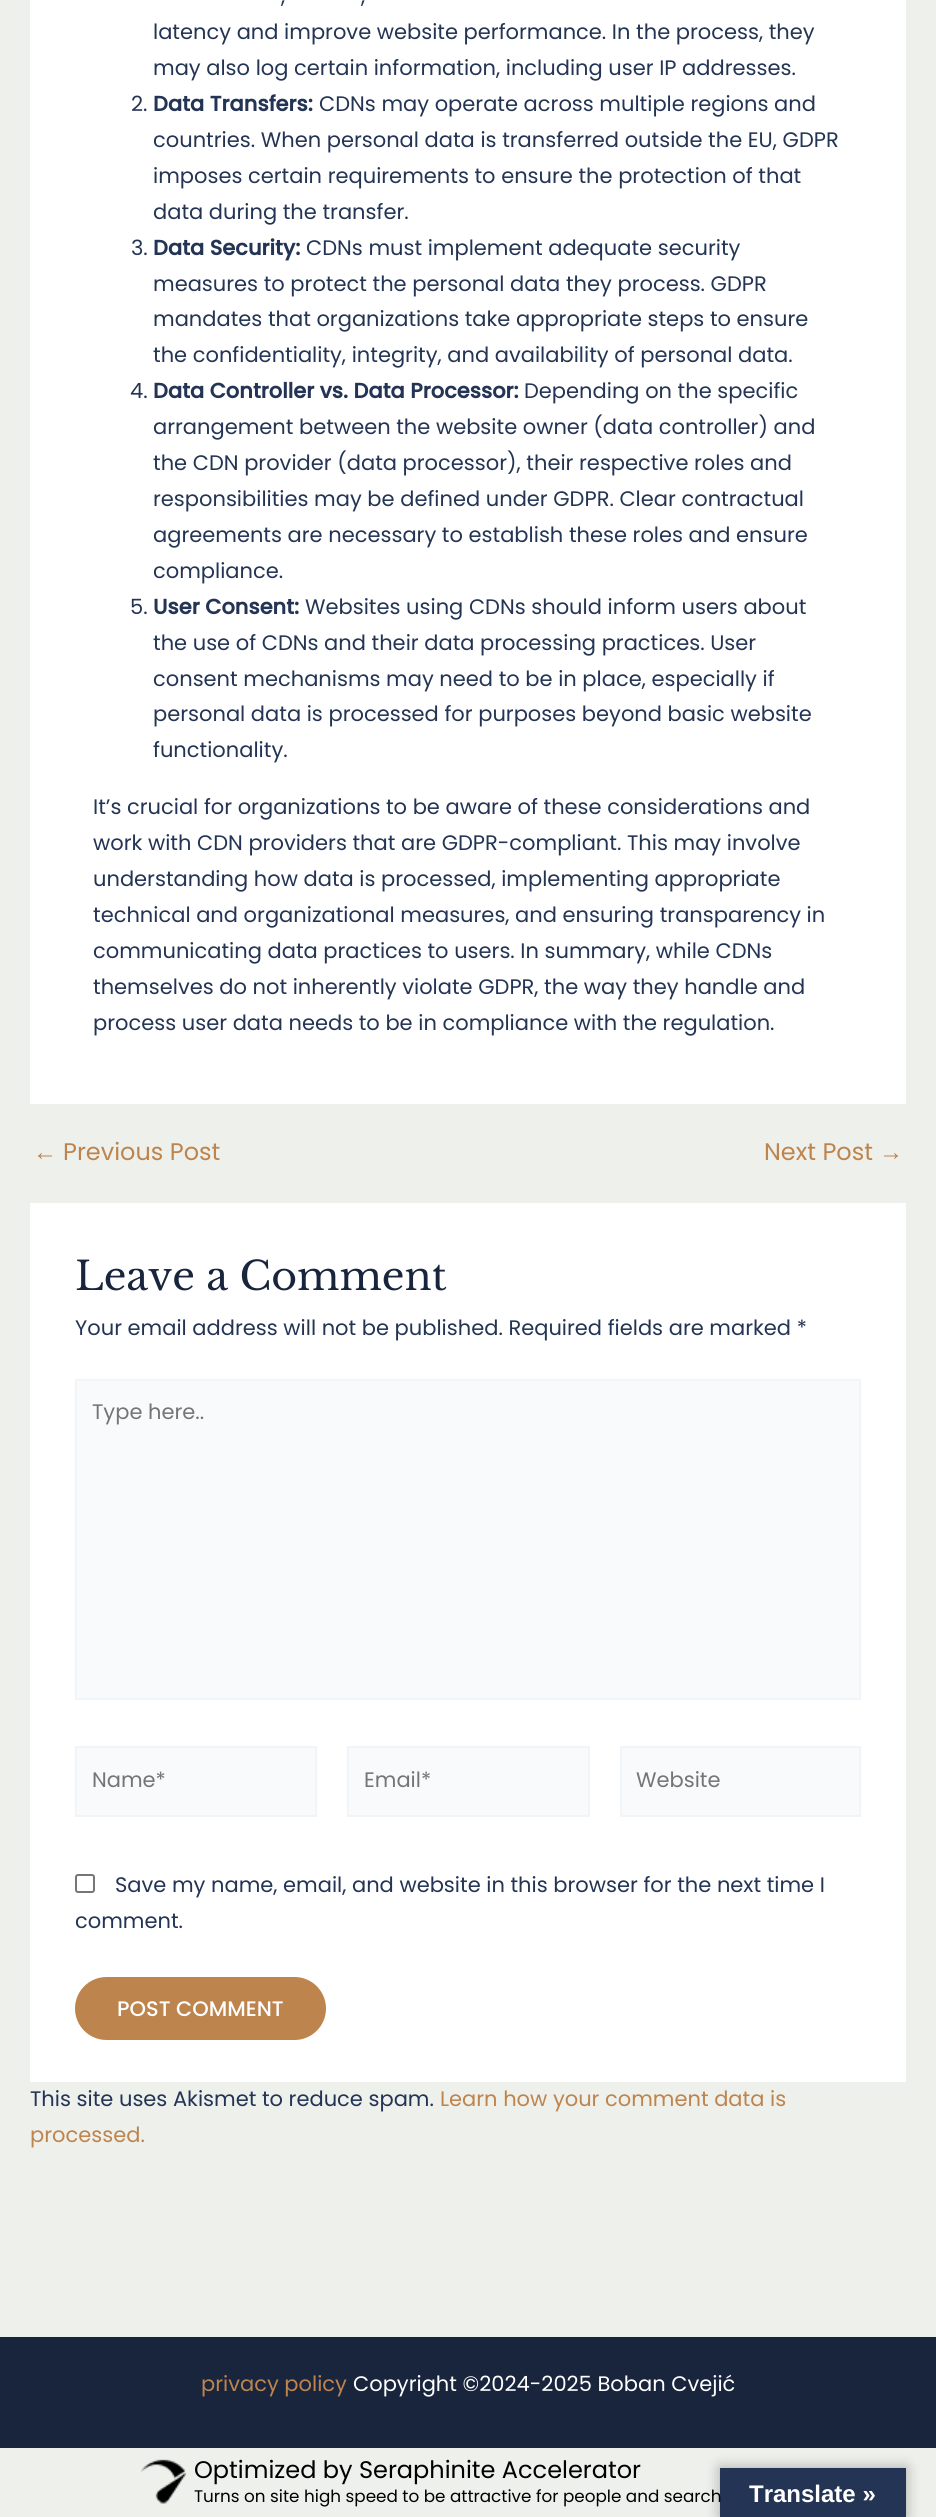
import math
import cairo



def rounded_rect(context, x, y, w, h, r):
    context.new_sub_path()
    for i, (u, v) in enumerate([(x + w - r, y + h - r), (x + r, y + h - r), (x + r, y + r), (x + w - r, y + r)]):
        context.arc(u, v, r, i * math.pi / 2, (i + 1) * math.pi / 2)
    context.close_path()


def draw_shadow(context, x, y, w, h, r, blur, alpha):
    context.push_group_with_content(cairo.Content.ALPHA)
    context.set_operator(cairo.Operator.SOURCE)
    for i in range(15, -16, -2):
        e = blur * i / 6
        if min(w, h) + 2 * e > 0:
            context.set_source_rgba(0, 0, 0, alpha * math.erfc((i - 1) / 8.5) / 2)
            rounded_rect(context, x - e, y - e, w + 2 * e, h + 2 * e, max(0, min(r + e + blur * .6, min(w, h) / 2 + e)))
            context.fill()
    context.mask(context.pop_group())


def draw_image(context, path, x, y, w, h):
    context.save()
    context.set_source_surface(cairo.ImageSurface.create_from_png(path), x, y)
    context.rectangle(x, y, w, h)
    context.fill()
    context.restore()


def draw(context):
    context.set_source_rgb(238 / 255, 240 / 255, 236 / 255)
    context.paint()
    context.set_source_rgb(1, 1, 1)
    context.rectangle(30, 0, 876, 1104)
    context.fill()
    context.rectangle(30, 1203, 876, 879)
    context.fill()
    context.set_source_rgb(249 / 255, 250 / 255, 251 / 255)
    context.rectangle(76, 1380, 784, 319)
    context.fill_preserve()
    context.set_source_rgb(242 / 255, 245 / 255, 248 / 255)
    context.stroke()
    context.set_source_rgb(249 / 255, 250 / 255, 251 / 255)
    context.rectangle(76, 1747, 240, 69)
    context.fill_preserve()
    context.set_source_rgb(242 / 255, 245 / 255, 248 / 255)
    context.stroke()
    context.set_source_rgb(249 / 255, 250 / 255, 251 / 255)
    context.rectangle(348, 1747, 241, 69)
    context.fill_preserve()
    context.set_source_rgb(242 / 255, 245 / 255, 248 / 255)
    context.stroke()
    context.set_source_rgb(249 / 255, 250 / 255, 251 / 255)
    context.rectangle(621, 1747, 239, 69)
    context.fill_preserve()
    context.set_source_rgb(242 / 255, 245 / 255, 248 / 255)
    context.stroke()
    rounded_rect(context, 76, 1875, 18, 17, 2)
    context.set_source_rgb(118 / 255, 118 / 255, 118 / 255)
    context.stroke()
    context.set_source_rgb(190 / 255, 132 / 255, 77 / 255)
    rounded_rect(context, 75, 1977, 251, 63, 31.5)
    context.fill()
    context.set_source_rgb(25 / 255, 37 / 255, 61 / 255)
    context.rectangle(0, 2337, 936, 111)
    context.fill()
    draw_image(context, "images/1.png", 141, 2459, 45, 45)
    context.set_source_rgb(0, 0, 0)
    draw_shadow(context, 720, 2468, 186, 49, 0, 7, 0.3)
    context.set_source_rgb(35 / 255, 52 / 255, 84 / 255)
    context.rectangle(720, 2468, 186, 49)
    context.fill()
    context.select_font_face("Poppins")
    context.set_font_size(21)
    context.move_to(281, 3)
    context.show_text(",")
    context.move_to(361, 3)
    context.show_text(",")
    context.move_to(153, 39)
    context.show_text("latency and improve website performance. In the process, they")
    context.move_to(153, 75)
    context.show_text("may also log certain information, including user IP addresses.")
    context.move_to(131, 111)
    context.show_text("2.")
    context.select_font_face("Poppins", cairo.FontSlant.NORMAL, cairo.FontWeight.BOLD)
    context.move_to(153, 111)
    context.show_text("Data Transfers:")
    context.select_font_face("Poppins")
    context.move_to(319, 111)
    context.show_text("CDNs may operate across multiple regions and")
    context.move_to(153, 147)
    context.show_text("countries. When personal data is transferred outside the EU, GDPR")
    context.move_to(153, 183)
    context.show_text("imposes certain requirements to ensure the protection of that")
    context.move_to(153, 219)
    context.show_text("data during the transfer.")
    context.move_to(131, 255)
    context.show_text("3.")
    context.select_font_face("Poppins", cairo.FontSlant.NORMAL, cairo.FontWeight.BOLD)
    context.move_to(153, 255)
    context.show_text("Data Security:")
    context.select_font_face("Poppins")
    context.move_to(306, 255)
    context.show_text("CDNs must implement adequate security")
    context.move_to(153, 291)
    context.show_text("measures to protect the personal data they process. GDPR")
    context.move_to(153, 326)
    context.show_text("mandates that organizations take appropriate steps to ensure")
    context.move_to(153, 362)
    context.show_text("the confidentiality, integrity, and availability of personal data.")
    context.move_to(130, 398)
    context.show_text("4.")
    context.select_font_face("Poppins", cairo.FontSlant.NORMAL, cairo.FontWeight.BOLD)
    context.move_to(153, 398)
    context.show_text("Data Controller vs. Data Processor:")
    context.select_font_face("Poppins")
    context.move_to(524, 398)
    context.show_text("Depending on the specific")
    context.move_to(153, 434)
    context.show_text("arrangement between the website owner (data controller) and")
    context.move_to(153, 470)
    context.show_text("the CDN provider (data processor), their respective roles and")
    context.move_to(153, 506)
    context.show_text("responsibilities may be defined under GDPR. Clear contractual")
    context.move_to(153, 542)
    context.show_text("agreements are necessary to establish these roles and ensure")
    context.move_to(153, 578)
    context.show_text("compliance.")
    context.move_to(130, 614)
    context.show_text("5.")
    context.select_font_face("Poppins", cairo.FontSlant.NORMAL, cairo.FontWeight.BOLD)
    context.move_to(153, 614)
    context.show_text("User Consent:")
    context.select_font_face("Poppins")
    context.move_to(305, 614)
    context.show_text("Websites using CDNs should inform users about")
    context.move_to(153, 650)
    context.show_text("the use of CDNs and their data processing practices. User")
    context.move_to(153, 686)
    context.show_text("consent mechanisms may need to be in place, especially if")
    context.move_to(153, 721)
    context.show_text("personal data is processed for purposes beyond basic website")
    context.move_to(153, 757)
    context.show_text("functionality.")
    context.move_to(93, 814)
    context.show_text("It’s crucial for organizations to be aware of these considerations and")
    context.move_to(93, 850)
    context.show_text("work with CDN providers that are GDPR-compliant. This may involve")
    context.move_to(93, 886)
    context.show_text("understanding how data is processed, implementing appropriate")
    context.move_to(93, 922)
    context.show_text("technical and organizational measures, and ensuring transparency in")
    context.move_to(93, 958)
    context.show_text("communicating data practices to users. In summary, while CDNs")
    context.move_to(93, 994)
    context.show_text("themselves do not inherently violate GDPR, the way they handle and")
    context.move_to(93, 1030)
    context.show_text("process user data needs to be in compliance with the regulation.")
    context.select_font_face("Liberation Sans")
    context.set_font_size(24)
    context.set_source_rgb(190 / 255, 132 / 255, 77 / 255)
    context.move_to(33, 1160)
    context.show_text("←")
    context.select_font_face("Poppins")
    context.move_to(63, 1160)
    context.show_text("Previous Post")
    context.move_to(764, 1160)
    context.show_text("Next Post")
    context.select_font_face("Liberation Sans")
    context.move_to(879, 1160)
    context.show_text("→")
    context.select_font_face("Libre Baskerville")
    context.set_font_size(39.5)
    context.set_source_rgb(25 / 255, 37 / 255, 61 / 255)
    context.move_to(75, 1290)
    context.show_text("Leave a Comment")
    context.select_font_face("Poppins")
    context.set_font_size(21)
    context.set_source_rgb(35 / 255, 52 / 255, 84 / 255)
    context.move_to(75, 1335)
    context.show_text("Your email address will not be published. Required fields are marked *")
    context.set_source_rgb(117 / 255, 117 / 255, 117 / 255)
    context.move_to(92, 1419)
    context.show_text("Type here..")
    context.move_to(92, 1787)
    context.show_text("Name*")
    context.move_to(364, 1787)
    context.show_text("Email*")
    context.move_to(636, 1787)
    context.show_text("Website")
    context.set_source_rgb(35 / 255, 52 / 255, 84 / 255)
    context.move_to(115, 1892)
    context.show_text("Save my name, email, and website in this browser for the next time I")
    context.move_to(75, 1928)
    context.show_text("comment.")
    context.select_font_face("Poppins Medium")
    context.set_source_rgb(1, 1, 1)
    context.move_to(117, 2016)
    context.show_text("POST COMMENT")
    context.select_font_face("Poppins")
    context.set_source_rgb(35 / 255, 52 / 255, 84 / 255)
    context.move_to(30, 2106)
    context.show_text("This site uses Akismet to reduce spam.")
    context.set_source_rgb(190 / 255, 132 / 255, 77 / 255)
    context.move_to(440, 2106)
    context.show_text("Learn how your comment data is")
    context.move_to(30, 2142)
    context.show_text("processed.")
    context.move_to(201, 2391)
    context.show_text("privacy policy")
    context.set_source_rgb(1, 1, 1)
    context.move_to(353, 2391)
    context.show_text("Copyright ©2024-2025 Boban Cvejić")
    context.set_font_size(24)
    context.set_source_rgb(0, 0, 0)
    context.move_to(194, 2478)
    context.show_text("Optimized by Seraphinite Accelerator")
    context.set_font_size(16.8)
    context.move_to(194, 2502)
    context.show_text("Turns on site high speed to be attractive for people and search")
    context.select_font_face("Liberation Sans", cairo.FontSlant.NORMAL, cairo.FontWeight.BOLD)
    context.set_font_size(24)
    context.set_source_rgb(1, 1, 1)
    context.move_to(749, 2502)
    context.show_text("Translate »")


surface = cairo.ImageSurface(cairo.Format.RGB24, 936, 2517)
context = cairo.Context(surface)
options = cairo.FontOptions()
options.set_hint_metrics(cairo.HintMetrics.OFF)
options.set_hint_style(cairo.HintStyle.NONE)
context.set_font_options(options)
context.set_miter_limit(4)
draw(context)
surface.write_to_png("out.png")
